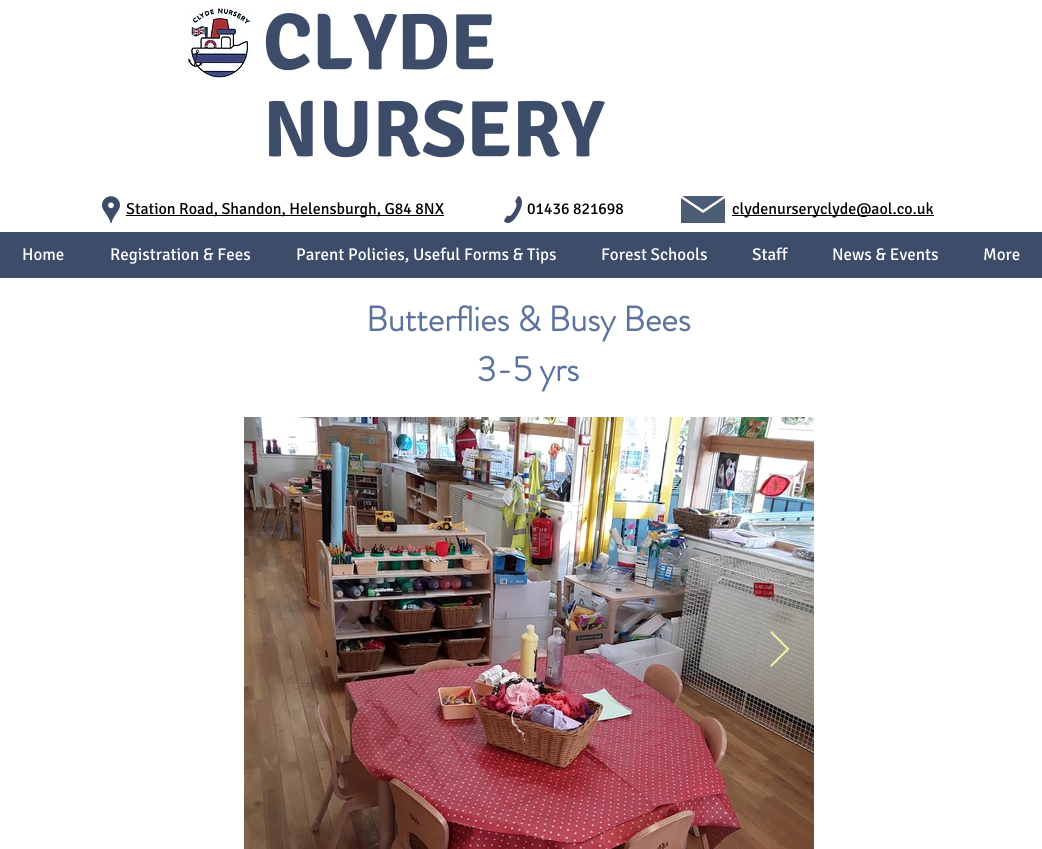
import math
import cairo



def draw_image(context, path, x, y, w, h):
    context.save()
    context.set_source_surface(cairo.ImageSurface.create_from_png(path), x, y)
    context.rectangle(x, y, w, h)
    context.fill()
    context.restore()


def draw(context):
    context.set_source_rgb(1, 1, 1)
    context.paint()
    draw_image(context, "images/1.png", 187, 7, 64, 72)
    draw_image(context, "images/2.png", 102, 196, 18, 27)
    context.set_source_rgb(0, 0, 0)
    context.rectangle(126, 215, 318, 1)
    context.fill()
    draw_image(context, "images/3.png", 504, 196, 18, 27)
    context.set_source_rgb(77 / 255, 92 / 255, 117 / 255)
    context.new_path()
    context.move_to(703, 210)
    context.line_to(682, 196)
    context.line_to(724, 196)
    context.close_path()
    context.move_to(725, 198)
    context.line_to(703, 213)
    context.line_to(681, 198)
    context.line_to(681, 223)
    context.line_to(725, 223)
    context.close_path()
    context.fill()
    context.set_source_rgb(0, 0, 0)
    context.rectangle(732, 215, 202, 1)
    context.fill()
    context.set_source_rgb(61 / 255, 77 / 255, 105 / 255)
    context.rectangle(0, 232, 1042, 46)
    context.fill()
    draw_image(context, "images/4.png", 244, 417, 570, 432)
    context.set_source_rgba(249 / 255, 250 / 255, 171 / 255, 0.9)
    context.new_path()
    context.move_to(770, 632.5)
    context.line_to(771.5, 631)
    context.line_to(789.5, 649)
    context.line_to(771.5, 667)
    context.line_to(770, 665.5)
    context.line_to(786.5, 649)
    context.close_path()
    context.fill()
    context.select_font_face("Signika", cairo.FontSlant.NORMAL, cairo.FontWeight.BOLD)
    context.set_font_size(80)
    context.set_source_rgb(61 / 255, 77 / 255, 105 / 255)
    context.move_to(263, 69)
    context.show_text("CLYDE")
    context.move_to(263, 156)
    context.show_text("NURSERY")
    context.select_font_face("Signika")
    context.set_font_size(16)
    context.set_source_rgb(0, 0, 0)
    context.move_to(126, 214)
    context.show_text("Station Road, Shandon, Helensburgh, G84 8NX")
    context.move_to(527, 214)
    context.show_text("01436 821698")
    context.move_to(732, 214)
    context.show_text("clydenurseryclyde@aol.co.uk")
    context.set_font_size(17)
    context.set_source_rgb(1, 1, 1)
    context.move_to(22, 260)
    context.show_text("Home")
    context.move_to(110, 260)
    context.show_text("Registration & Fees")
    context.move_to(296, 260)
    context.show_text("Parent Policies, Useful Forms & Tips")
    context.move_to(601, 260)
    context.show_text("Forest Schools")
    context.move_to(752, 260)
    context.show_text("Staff")
    context.move_to(832, 260)
    context.show_text("News & Events")
    context.move_to(983, 260)
    context.show_text("More")
    context.select_font_face("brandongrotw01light", cairo.FontSlant.NORMAL, cairo.FontWeight.BOLD)
    context.set_font_size(35)
    context.set_source_rgb(92 / 255, 115 / 255, 157 / 255)
    context.move_to(366, 331)
    context.show_text("Butterflies & Busy Bees")
    context.move_to(477, 381)
    context.show_text("3-5 yrs")


surface = cairo.ImageSurface(cairo.Format.RGB24, 1042, 849)
context = cairo.Context(surface)
options = cairo.FontOptions()
options.set_hint_metrics(cairo.HintMetrics.OFF)
options.set_hint_style(cairo.HintStyle.NONE)
context.set_font_options(options)
context.set_miter_limit(4)
draw(context)
surface.write_to_png("out.png")
